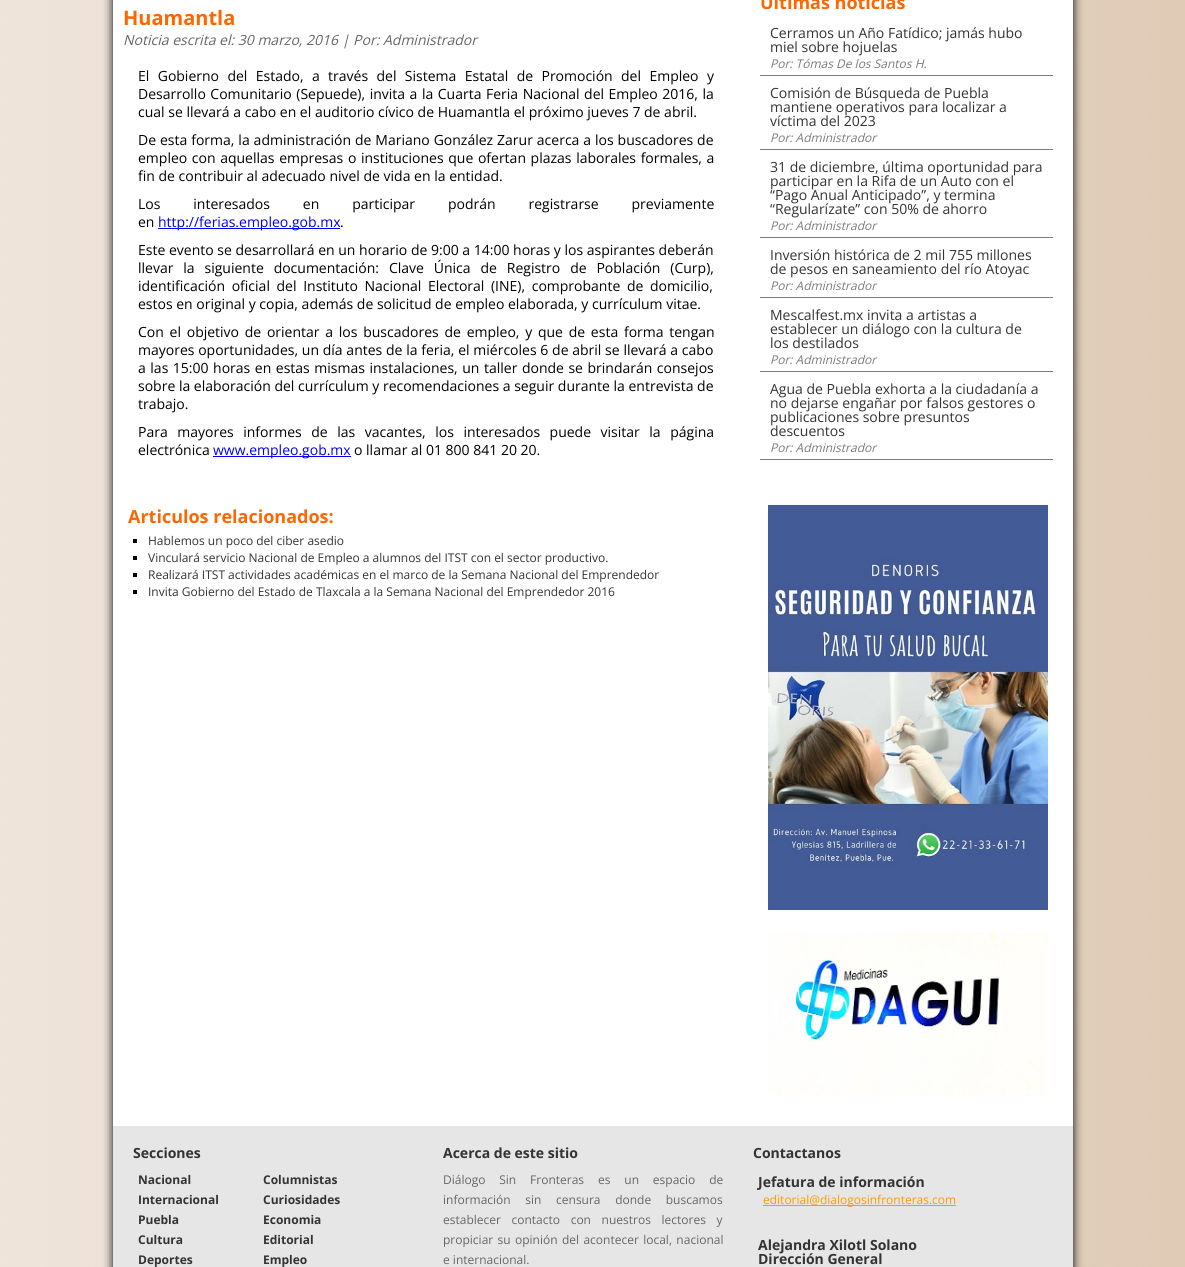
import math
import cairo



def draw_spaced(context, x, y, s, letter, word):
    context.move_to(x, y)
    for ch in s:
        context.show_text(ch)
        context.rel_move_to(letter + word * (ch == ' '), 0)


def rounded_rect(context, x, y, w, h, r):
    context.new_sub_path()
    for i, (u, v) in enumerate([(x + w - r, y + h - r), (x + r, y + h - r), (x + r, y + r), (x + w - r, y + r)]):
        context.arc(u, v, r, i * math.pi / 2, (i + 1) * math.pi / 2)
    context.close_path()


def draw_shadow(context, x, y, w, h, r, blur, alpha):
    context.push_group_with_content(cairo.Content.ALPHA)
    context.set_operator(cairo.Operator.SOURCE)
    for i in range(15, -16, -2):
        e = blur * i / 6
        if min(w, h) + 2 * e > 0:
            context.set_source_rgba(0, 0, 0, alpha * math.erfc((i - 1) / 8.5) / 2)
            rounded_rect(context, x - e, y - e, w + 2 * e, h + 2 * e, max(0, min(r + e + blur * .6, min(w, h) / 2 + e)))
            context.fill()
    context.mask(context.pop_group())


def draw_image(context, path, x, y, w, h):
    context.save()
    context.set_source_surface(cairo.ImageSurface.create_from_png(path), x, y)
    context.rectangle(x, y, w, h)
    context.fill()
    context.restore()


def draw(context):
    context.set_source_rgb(1, 1, 1)
    context.paint()
    draw_image(context, "images/1.png", 0, 0, 1185, 1267)
    context.set_source_rgb(0, 0, 0)
    draw_shadow(context, 113, -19, 960, 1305, 4, 5, 1)
    context.set_source_rgb(1, 1, 1)
    context.rectangle(113, 0, 960, 1126)
    context.fill()
    context.set_source_rgb(0, 0, 238 / 255)
    context.rectangle(158, 228, 182, 1)
    context.fill()
    context.rectangle(213, 456, 138, 1)
    context.fill()
    context.set_source_rgb(0, 0, 0)
    context.rectangle(133, 539, 4, 4)
    context.fill()
    context.rectangle(133, 556, 4, 4)
    context.fill()
    context.rectangle(133, 573, 4, 4)
    context.fill()
    context.rectangle(133, 590, 4, 4)
    context.fill()
    context.set_source_rgb(123 / 255, 123 / 255, 123 / 255)
    context.rectangle(760, 75, 293, 1)
    context.fill()
    context.rectangle(760, 149, 293, 1)
    context.fill()
    context.rectangle(760, 237, 293, 1)
    context.fill()
    context.rectangle(760, 297, 293, 1)
    context.fill()
    context.rectangle(760, 371, 293, 1)
    context.fill()
    context.rectangle(760, 459, 293, 1)
    context.fill()
    draw_image(context, "images/2.png", 768, 505, 280, 405)
    draw_image(context, "images/3.png", 768, 932, 280, 164)
    context.set_source_rgb(230 / 255, 230 / 255, 230 / 255)
    context.rectangle(113, 1126, 960, 141)
    context.fill()
    context.set_source_rgb(1, 153 / 255, 0)
    context.rectangle(763, 1205, 193, 1)
    context.fill()
    context.select_font_face("Open Sans", cairo.FontSlant.NORMAL, cairo.FontWeight.BOLD)
    context.set_font_size(20)
    context.set_source_rgb(1, 102 / 255, 0)
    context.move_to(123, 25)
    context.show_text("Huamantla")
    context.select_font_face("Open Sans", cairo.FontSlant.ITALIC)
    context.set_font_size(14)
    context.set_source_rgb(102 / 255, 102 / 255, 102 / 255)
    context.move_to(123, 45)
    context.show_text("Noticia escrita el: 30 marzo, 2016 | Por: Administrador")
    context.select_font_face("Open Sans")
    context.set_source_rgb(0, 0, 0)
    draw_spaced(context, 138, 81, "El Gobierno del Estado, a través del Sistema Estatal de Promoción del Empleo y", 0, 4.75)
    draw_spaced(context, 138, 99, "Desarrollo Comunitario (Sepuede), invita a la Cuarta Feria Nacional del Empleo 2016, la", 0, 0.9)
    context.move_to(138, 117)
    context.show_text("cual se llevará a cabo en el auditorio cívico de Huamantla el próximo jueves 7 de abril.")
    draw_spaced(context, 138, 145, "De esta forma, la administración de Mariano González Zarur acerca a los buscadores de", 0, 0.3)
    draw_spaced(context, 138, 163, "empleo con aquellas empresas o instituciones que ofertan plazas laborales formales, a", 0, 1)
    context.move_to(138, 181)
    context.show_text("fin de contribuir al adecuado nivel de vida en la entidad.")
    draw_spaced(context, 138, 209, "Los interesados en participar podrán registrarse previamente", 0, 29.25)
    context.move_to(138, 227)
    context.show_text("en")
    context.set_source_rgb(0, 0, 238 / 255)
    context.move_to(158, 227)
    context.show_text("http://ferias.empleo.gob.mx")
    context.set_source_rgb(0, 0, 0)
    context.move_to(340, 227)
    context.show_text(".")
    context.move_to(138, 255)
    context.show_text("Este evento se desarrollará en un horario de 9:00 a 14:00 horas y los aspirantes deberán")
    draw_spaced(context, 138, 273, "llevar la siguiente documentación: Clave Única de Registro de Población (Curp),", 0, 6.25)
    draw_spaced(context, 138, 291, "identificación oficial del Instituto Nacional Electoral (INE), comprobante de domicilio,", 0, 3)
    context.move_to(138, 309)
    context.show_text("estos en original y copia, además de solicitud de empleo elaborada, y currículum vitae.")
    draw_spaced(context, 138, 337, "Con el objetivo de orientar a los buscadores de empleo, y que de esta forma tengan", 0, 2.1)
    draw_spaced(context, 138, 355, "mayores oportunidades, un día antes de la feria, el miércoles 6 de abril se llevará a cabo", 0, 0.1)
    draw_spaced(context, 138, 373, "a las 15:00 horas en estas mismas instalaciones, un taller donde se brindarán consejos", 0, 0.9)
    context.move_to(138, 391)
    context.show_text("sobre la elaboración del currículum y recomendaciones a seguir durante la entrevista de")
    context.move_to(138, 409)
    context.show_text("trabajo.")
    draw_spaced(context, 138, 437, "Para mayores informes de las vacantes, los interesados puede visitar la página", 0, 5.9)
    context.move_to(138, 455)
    context.show_text("electrónica")
    context.set_source_rgb(0, 0, 238 / 255)
    context.move_to(213, 455)
    context.show_text("www.empleo.gob.mx")
    context.set_source_rgb(0, 0, 0)
    context.move_to(354, 455)
    context.show_text("o llamar al 01 800 841 20 20.")
    context.select_font_face("Open Sans", cairo.FontSlant.NORMAL, cairo.FontWeight.BOLD)
    context.set_font_size(18)
    context.set_source_rgb(1, 102 / 255, 0)
    context.move_to(128, 523)
    context.show_text("Articulos relacionados:")
    context.select_font_face("Open Sans")
    context.set_font_size(12)
    context.set_source_rgb(51 / 255, 51 / 255, 51 / 255)
    context.move_to(148, 545)
    context.show_text("Hablemos un poco del ciber asedio")
    context.move_to(148, 562)
    context.show_text("Vinculará servicio Nacional de Empleo a alumnos del ITST con el sector productivo.")
    context.move_to(148, 579)
    context.show_text("Realizará ITST actividades académicas en el marco de la Semana Nacional del Emprendedor")
    context.move_to(148, 596)
    context.show_text("Invita Gobierno del Estado de Tlaxcala a la Semana Nacional del Emprendedor 2016")
    context.select_font_face("Open Sans", cairo.FontSlant.NORMAL, cairo.FontWeight.BOLD)
    context.set_font_size(18)
    context.set_source_rgb(1, 102 / 255, 0)
    context.move_to(760, 9)
    context.show_text("Últimas noticias")
    context.select_font_face("Open Sans")
    context.set_font_size(14)
    context.set_source_rgb(51 / 255, 51 / 255, 51 / 255)
    context.move_to(770, 38)
    context.show_text("Cerramos un Año Fatídico; jamás hubo")
    context.move_to(770, 52)
    context.show_text("miel sobre hojuelas")
    context.select_font_face("Open Sans", cairo.FontSlant.ITALIC)
    context.set_font_size(12)
    context.set_source_rgb(123 / 255, 123 / 255, 123 / 255)
    context.move_to(770, 68)
    context.show_text("Por: Tómas De los Santos H.")
    context.select_font_face("Open Sans")
    context.set_font_size(14)
    context.set_source_rgb(51 / 255, 51 / 255, 51 / 255)
    context.move_to(770, 98)
    context.show_text("Comisión de Búsqueda de Puebla")
    context.move_to(770, 112)
    context.show_text("mantiene operativos para localizar a")
    context.move_to(770, 126)
    context.show_text("víctima del 2023")
    context.select_font_face("Open Sans", cairo.FontSlant.ITALIC)
    context.set_font_size(12)
    context.set_source_rgb(123 / 255, 123 / 255, 123 / 255)
    context.move_to(770, 142)
    context.show_text("Por: Administrador")
    context.select_font_face("Open Sans")
    context.set_font_size(14)
    context.set_source_rgb(51 / 255, 51 / 255, 51 / 255)
    context.move_to(770, 172)
    context.show_text("31 de diciembre, última oportunidad para")
    context.move_to(770, 186)
    context.show_text("participar en la Rifa de un Auto con el")
    context.move_to(770, 200)
    context.show_text("“Pago Anual Anticipado”, y termina")
    context.move_to(770, 214)
    context.show_text("“Regularízate” con 50% de ahorro")
    context.select_font_face("Open Sans", cairo.FontSlant.ITALIC)
    context.set_font_size(12)
    context.set_source_rgb(123 / 255, 123 / 255, 123 / 255)
    context.move_to(770, 230)
    context.show_text("Por: Administrador")
    context.select_font_face("Open Sans")
    context.set_font_size(14)
    context.set_source_rgb(51 / 255, 51 / 255, 51 / 255)
    context.move_to(770, 260)
    context.show_text("Inversión histórica de 2 mil 755 millones")
    context.move_to(770, 274)
    context.show_text("de pesos en saneamiento del río Atoyac")
    context.select_font_face("Open Sans", cairo.FontSlant.ITALIC)
    context.set_font_size(12)
    context.set_source_rgb(123 / 255, 123 / 255, 123 / 255)
    context.move_to(770, 290)
    context.show_text("Por: Administrador")
    context.select_font_face("Open Sans")
    context.set_font_size(14)
    context.set_source_rgb(51 / 255, 51 / 255, 51 / 255)
    context.move_to(770, 320)
    context.show_text("Mescalfest.mx invita a artistas a")
    context.move_to(770, 334)
    context.show_text("establecer un diálogo con la cultura de")
    context.move_to(770, 348)
    context.show_text("los destilados")
    context.select_font_face("Open Sans", cairo.FontSlant.ITALIC)
    context.set_font_size(12)
    context.set_source_rgb(123 / 255, 123 / 255, 123 / 255)
    context.move_to(770, 364)
    context.show_text("Por: Administrador")
    context.select_font_face("Open Sans")
    context.set_font_size(14)
    context.set_source_rgb(51 / 255, 51 / 255, 51 / 255)
    context.move_to(770, 394)
    context.show_text("Agua de Puebla exhorta a la ciudadanía a")
    context.move_to(770, 408)
    context.show_text("no dejarse engañar por falsos gestores o")
    context.move_to(770, 422)
    context.show_text("publicaciones sobre presuntos")
    context.move_to(770, 436)
    context.show_text("descuentos")
    context.select_font_face("Open Sans", cairo.FontSlant.ITALIC)
    context.set_font_size(12)
    context.set_source_rgb(123 / 255, 123 / 255, 123 / 255)
    context.move_to(770, 452)
    context.show_text("Por: Administrador")
    context.select_font_face("Open Sans", cairo.FontSlant.NORMAL, cairo.FontWeight.BOLD)
    context.set_font_size(14)
    context.set_source_rgb(51 / 255, 51 / 255, 51 / 255)
    context.move_to(133, 1158)
    context.show_text("Secciones")
    context.set_font_size(12)
    context.move_to(138, 1184)
    context.show_text("Nacional")
    context.move_to(138, 1204)
    context.show_text("Internacional")
    context.move_to(138, 1224)
    context.show_text("Puebla")
    context.move_to(138, 1244)
    context.show_text("Cultura")
    context.move_to(138, 1264)
    context.show_text("Deportes")
    context.move_to(263, 1184)
    context.show_text("Columnistas")
    context.move_to(263, 1204)
    context.show_text("Curiosidades")
    context.move_to(263, 1224)
    context.show_text("Economia")
    context.move_to(263, 1244)
    context.show_text("Editorial")
    context.move_to(263, 1264)
    context.show_text("Empleo")
    context.set_font_size(14)
    context.move_to(443, 1158)
    context.show_text("Acerca de este sitio")
    context.select_font_face("Open Sans")
    context.set_font_size(12)
    context.set_source_rgb(102 / 255, 102 / 255, 102 / 255)
    draw_spaced(context, 443, 1184, "Diálogo Sin Fronteras es un espacio de", 0, 10.75)
    draw_spaced(context, 443, 1204, "información sin censura donde buscamos", 0, 11.5)
    draw_spaced(context, 443, 1224, "establecer contacto con nuestros lectores y", 0, 7.5)
    draw_spaced(context, 443, 1244, "propiciar su opinión del acontecer local, nacional", 0, 1.25)
    context.move_to(443, 1264)
    context.show_text("e internacional.")
    context.select_font_face("Open Sans", cairo.FontSlant.NORMAL, cairo.FontWeight.BOLD)
    context.set_font_size(14)
    context.set_source_rgb(51 / 255, 51 / 255, 51 / 255)
    context.move_to(753, 1158)
    context.show_text("Contactanos")
    context.move_to(758, 1187)
    context.show_text("Jefatura de información")
    context.select_font_face("Open Sans")
    context.set_font_size(12)
    context.set_source_rgb(1, 153 / 255, 0)
    context.move_to(763, 1204)
    context.show_text("editorial@dialogosinfronteras.com")
    context.select_font_face("Open Sans", cairo.FontSlant.NORMAL, cairo.FontWeight.BOLD)
    context.set_font_size(14)
    context.set_source_rgb(51 / 255, 51 / 255, 51 / 255)
    context.move_to(758, 1250)
    context.show_text("Alejandra Xilotl Solano")
    context.move_to(758, 1264)
    context.show_text("Dirección General")


surface = cairo.ImageSurface(cairo.Format.RGB24, 1185, 1267)
context = cairo.Context(surface)
options = cairo.FontOptions()
options.set_hint_metrics(cairo.HintMetrics.OFF)
options.set_hint_style(cairo.HintStyle.NONE)
context.set_font_options(options)
context.set_miter_limit(4)
draw(context)
surface.write_to_png("out.png")
